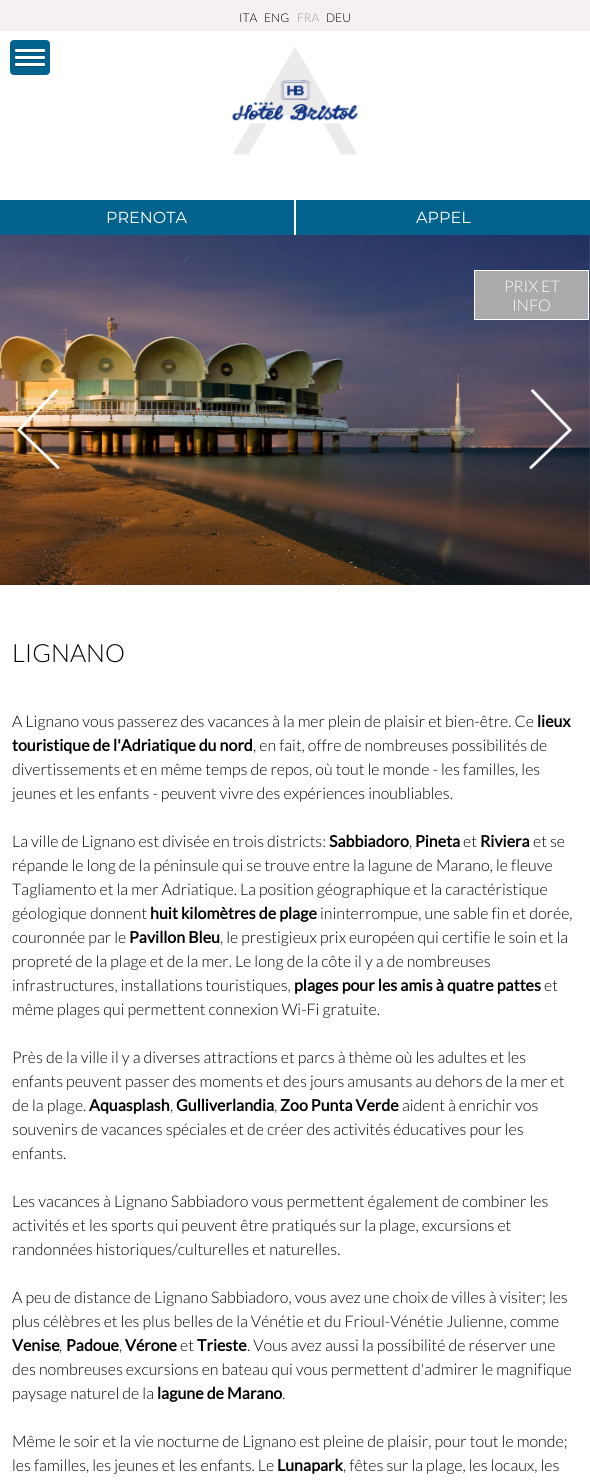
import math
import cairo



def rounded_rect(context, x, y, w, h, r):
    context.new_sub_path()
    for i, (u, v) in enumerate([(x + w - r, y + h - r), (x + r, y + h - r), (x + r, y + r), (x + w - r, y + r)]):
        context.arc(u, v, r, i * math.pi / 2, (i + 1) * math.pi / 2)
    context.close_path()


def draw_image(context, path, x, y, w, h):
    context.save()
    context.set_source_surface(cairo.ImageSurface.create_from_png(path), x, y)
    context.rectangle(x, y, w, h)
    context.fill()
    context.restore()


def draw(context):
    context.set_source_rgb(1, 1, 1)
    context.paint()
    context.set_source_rgb(244 / 255, 241 / 255, 240 / 255)
    context.rectangle(0, 0, 590, 31)
    context.fill()
    context.set_source_rgb(0, 98 / 255, 141 / 255)
    rounded_rect(context, 10, 40, 40, 35, 4)
    context.fill()
    context.set_source_rgb(0, 74 / 255, 106 / 255)
    context.new_path()
    context.move_to(15, 51)
    context.curve_to(15, 54.5, 17.5, 53, 20.5, 53)
    context.line_to(39.5, 53)
    context.curve_to(42.5, 53, 45, 54.5, 45, 51)
    context.line_to(44.5, 52)
    context.line_to(15.5, 52)
    context.close_path()
    context.fill()
    context.set_source_rgb(1, 1, 1)
    rounded_rect(context, 15, 49, 30, 3, 1)
    context.fill()
    context.set_source_rgb(0, 74 / 255, 106 / 255)
    context.new_path()
    context.move_to(15, 58)
    context.curve_to(15, 61.5, 17.5, 60, 20.5, 60)
    context.line_to(39.5, 60)
    context.curve_to(42.5, 60, 45, 61.5, 45, 58)
    context.line_to(44.5, 59)
    context.line_to(15.5, 59)
    context.close_path()
    context.fill()
    context.set_source_rgb(1, 1, 1)
    rounded_rect(context, 15, 56, 30, 3, 1)
    context.fill()
    context.set_source_rgb(0, 74 / 255, 106 / 255)
    context.new_path()
    context.move_to(15, 65)
    context.curve_to(15, 68.5, 17.5, 67, 20.5, 67)
    context.line_to(39.5, 67)
    context.curve_to(42.5, 67, 45, 68.5, 45, 65)
    context.line_to(44.5, 66)
    context.line_to(15.5, 66)
    context.close_path()
    context.fill()
    context.set_source_rgb(1, 1, 1)
    rounded_rect(context, 15, 63, 30, 3, 1)
    context.fill()
    draw_image(context, "images/1.png", 231, 47, 128, 108)
    context.set_source_rgb(0, 98 / 255, 141 / 255)
    context.rectangle(0, 200, 294, 35)
    context.fill()
    context.rectangle(296, 200, 294, 35)
    context.fill()
    draw_image(context, "images/3.png", 589, 235, 1, 350)
    draw_image(context, "images/2.png", 0, 235, 590, 350)
    draw_image(context, "images/4.png", 17, 389, 43, 81)
    draw_image(context, "images/5.png", 529, 389, 43, 81)
    context.set_source_rgb(170 / 255, 170 / 255, 170 / 255)
    context.rectangle(474.5, 270.5, 114, 49)
    context.fill_preserve()
    context.set_source_rgb(1, 1, 1)
    context.set_line_width(1)
    context.stroke()
    context.select_font_face("Lato Light")
    context.set_font_size(12)
    context.set_source_rgb(0, 0, 0)
    context.move_to(239, 22)
    context.show_text("ITA")
    context.move_to(264, 22)
    context.show_text("ENG")
    context.set_source_rgb(153 / 255, 153 / 255, 153 / 255)
    context.move_to(297, 22)
    context.show_text("FRA")
    context.set_source_rgb(0, 0, 0)
    context.move_to(326, 22)
    context.show_text("DEU")
    context.select_font_face("Montserrat Thin")
    context.set_font_size(16)
    context.set_source_rgb(1, 1, 1)
    context.move_to(106, 223)
    context.show_text("PRENOTA")
    context.move_to(416, 223)
    context.show_text("APPEL")
    context.select_font_face("Lato Light")
    context.move_to(504, 292)
    context.show_text("PRIX ET")
    context.move_to(512, 311)
    context.show_text("INFO")
    context.set_font_size(25)
    context.set_source_rgb(0, 0, 0)
    context.move_to(12, 662)
    context.show_text("LIGNANO")
    context.set_font_size(16)
    context.move_to(12, 727)
    context.show_text("A Lignano vous passerez des vacances à la mer plein de plaisir et bien-être. Ce")
    context.select_font_face("Lato", cairo.FontSlant.NORMAL, cairo.FontWeight.BOLD)
    context.move_to(537, 727)
    context.show_text("lieux")
    context.move_to(12, 751)
    context.show_text("touristique de l'Adriatique du nord")
    context.select_font_face("Lato Light")
    context.move_to(253, 751)
    context.show_text(", en fait, offre de nombreuses possibilités de")
    context.move_to(12, 775)
    context.show_text("divertissements et en même temps de repos, où tout le monde - les familles, les")
    context.move_to(12, 799)
    context.show_text("jeunes et les enfants - peuvent vivre des expériences inoubliables.")
    context.move_to(12, 847)
    context.show_text("La ville de Lignano est divisée en trois districts:")
    context.select_font_face("Lato", cairo.FontSlant.NORMAL, cairo.FontWeight.BOLD)
    context.move_to(329, 847)
    context.show_text("Sabbiadoro")
    context.select_font_face("Lato Light")
    context.move_to(409, 847)
    context.show_text(",")
    context.select_font_face("Lato", cairo.FontSlant.NORMAL, cairo.FontWeight.BOLD)
    context.move_to(415, 847)
    context.show_text("Pineta")
    context.select_font_face("Lato Light")
    context.move_to(463, 847)
    context.show_text("et")
    context.select_font_face("Lato", cairo.FontSlant.NORMAL, cairo.FontWeight.BOLD)
    context.move_to(480, 847)
    context.show_text("Riviera")
    context.select_font_face("Lato Light")
    context.move_to(533, 847)
    context.show_text("et se")
    context.move_to(12, 871)
    context.show_text("répande le long de la péninsule qui se trouve entre la lagune de Marano, le fleuve")
    context.move_to(12, 895)
    context.show_text("Tagliamento et la mer Adriatique. La position géographique et la caractéristique")
    context.move_to(12, 919)
    context.show_text("géologique donnent")
    context.select_font_face("Lato", cairo.FontSlant.NORMAL, cairo.FontWeight.BOLD)
    context.move_to(150, 919)
    context.show_text("huit kilomètres de plage")
    context.select_font_face("Lato Light")
    context.move_to(320, 919)
    context.show_text("ininterrompue, une sable fin et dorée,")
    context.move_to(12, 943)
    context.show_text("couronnée par le")
    context.select_font_face("Lato", cairo.FontSlant.NORMAL, cairo.FontWeight.BOLD)
    context.move_to(129, 943)
    context.show_text("Pavillon Bleu")
    context.select_font_face("Lato Light")
    context.move_to(220, 943)
    context.show_text(", le prestigieux prix européen qui certifie le soin et la")
    context.move_to(12, 967)
    context.show_text("propreté de la plage et de la mer. Le long de la côte il y a de nombreuses")
    context.move_to(12, 991)
    context.show_text("infrastructures, installations touristiques,")
    context.select_font_face("Lato", cairo.FontSlant.NORMAL, cairo.FontWeight.BOLD)
    context.move_to(294, 991)
    context.show_text("plages pour les amis à quatre pattes")
    context.select_font_face("Lato Light")
    context.move_to(544, 991)
    context.show_text("et")
    context.move_to(12, 1015)
    context.show_text("même plages qui permettent connexion Wi-Fi gratuite.")
    context.move_to(12, 1063)
    context.show_text("Près de la ville il y a diverses attractions et parcs à thème où les adultes et les")
    context.move_to(12, 1087)
    context.show_text("enfants peuvent passer des moments et des jours amusants au dehors de la mer et")
    context.move_to(12, 1111)
    context.show_text("de la plage.")
    context.select_font_face("Lato", cairo.FontSlant.NORMAL, cairo.FontWeight.BOLD)
    context.move_to(89, 1111)
    context.show_text("Aquasplash")
    context.select_font_face("Lato Light")
    context.move_to(170, 1111)
    context.show_text(",")
    context.select_font_face("Lato", cairo.FontSlant.NORMAL, cairo.FontWeight.BOLD)
    context.move_to(176, 1111)
    context.show_text("Gulliverlandia")
    context.select_font_face("Lato Light")
    context.move_to(274, 1111)
    context.show_text(",")
    context.select_font_face("Lato", cairo.FontSlant.NORMAL, cairo.FontWeight.BOLD)
    context.move_to(280, 1111)
    context.show_text("Zoo Punta Verde")
    context.select_font_face("Lato Light")
    context.move_to(402, 1111)
    context.show_text("aident à enrichir vos")
    context.move_to(12, 1135)
    context.show_text("souvenirs de vacances spéciales et de créer des activités éducatives pour les")
    context.move_to(12, 1159)
    context.show_text("enfants.")
    context.move_to(12, 1207)
    context.show_text("Les vacances à Lignano Sabbiadoro vous permettent également de combiner les")
    context.move_to(12, 1231)
    context.show_text("activités et les sports qui peuvent être pratiqués sur la plage, excursions et")
    context.move_to(12, 1255)
    context.show_text("randonnées historiques/culturelles et naturelles.")
    context.move_to(12, 1303)
    context.show_text("A peu de distance de Lignano Sabbiadoro, vous avez une choix de villes à visiter; les")
    context.move_to(12, 1327)
    context.show_text("plus célèbres et les plus belles de la Vénétie et du Frioul-Vénétie Julienne, comme")
    context.select_font_face("Lato", cairo.FontSlant.NORMAL, cairo.FontWeight.BOLD)
    context.move_to(12, 1351)
    context.show_text("Venise")
    context.select_font_face("Lato Light")
    context.move_to(59, 1351)
    context.show_text(",")
    context.select_font_face("Lato", cairo.FontSlant.NORMAL, cairo.FontWeight.BOLD)
    context.move_to(66, 1351)
    context.show_text("Padoue")
    context.select_font_face("Lato Light")
    context.move_to(119, 1351)
    context.show_text(",")
    context.select_font_face("Lato", cairo.FontSlant.NORMAL, cairo.FontWeight.BOLD)
    context.move_to(125, 1351)
    context.show_text("Vérone")
    context.select_font_face("Lato Light")
    context.move_to(180, 1351)
    context.show_text("et")
    context.select_font_face("Lato", cairo.FontSlant.NORMAL, cairo.FontWeight.BOLD)
    context.move_to(197, 1351)
    context.show_text("Trieste")
    context.select_font_face("Lato Light")
    context.move_to(247, 1351)
    context.show_text(". Vous avez aussi la possibilité de réserver une")
    context.move_to(12, 1375)
    context.show_text("des nombreuses excursions en bateau qui vous permettent d'admirer le magnifique")
    context.move_to(12, 1399)
    context.show_text("paysage naturel de la")
    context.select_font_face("Lato", cairo.FontSlant.NORMAL, cairo.FontWeight.BOLD)
    context.move_to(157, 1399)
    context.show_text("lagune de Marano")
    context.select_font_face("Lato Light")
    context.move_to(282, 1399)
    context.show_text(".")
    context.move_to(12, 1447)
    context.show_text("Même le soir et la vie nocturne de Lignano est pleine de plaisir, pour tout le monde;")
    context.move_to(12, 1471)
    context.show_text("les familles, les jeunes et les enfants. Le")
    context.select_font_face("Lato", cairo.FontSlant.NORMAL, cairo.FontWeight.BOLD)
    context.move_to(277, 1471)
    context.show_text("Lunapark")
    context.select_font_face("Lato Light")
    context.move_to(343, 1471)
    context.show_text(", fêtes sur la plage, les locaux, les")


surface = cairo.ImageSurface(cairo.Format.RGB24, 590, 1483)
context = cairo.Context(surface)
options = cairo.FontOptions()
options.set_hint_metrics(cairo.HintMetrics.OFF)
options.set_hint_style(cairo.HintStyle.NONE)
context.set_font_options(options)
context.set_miter_limit(4)
draw(context)
surface.write_to_png("out.png")
